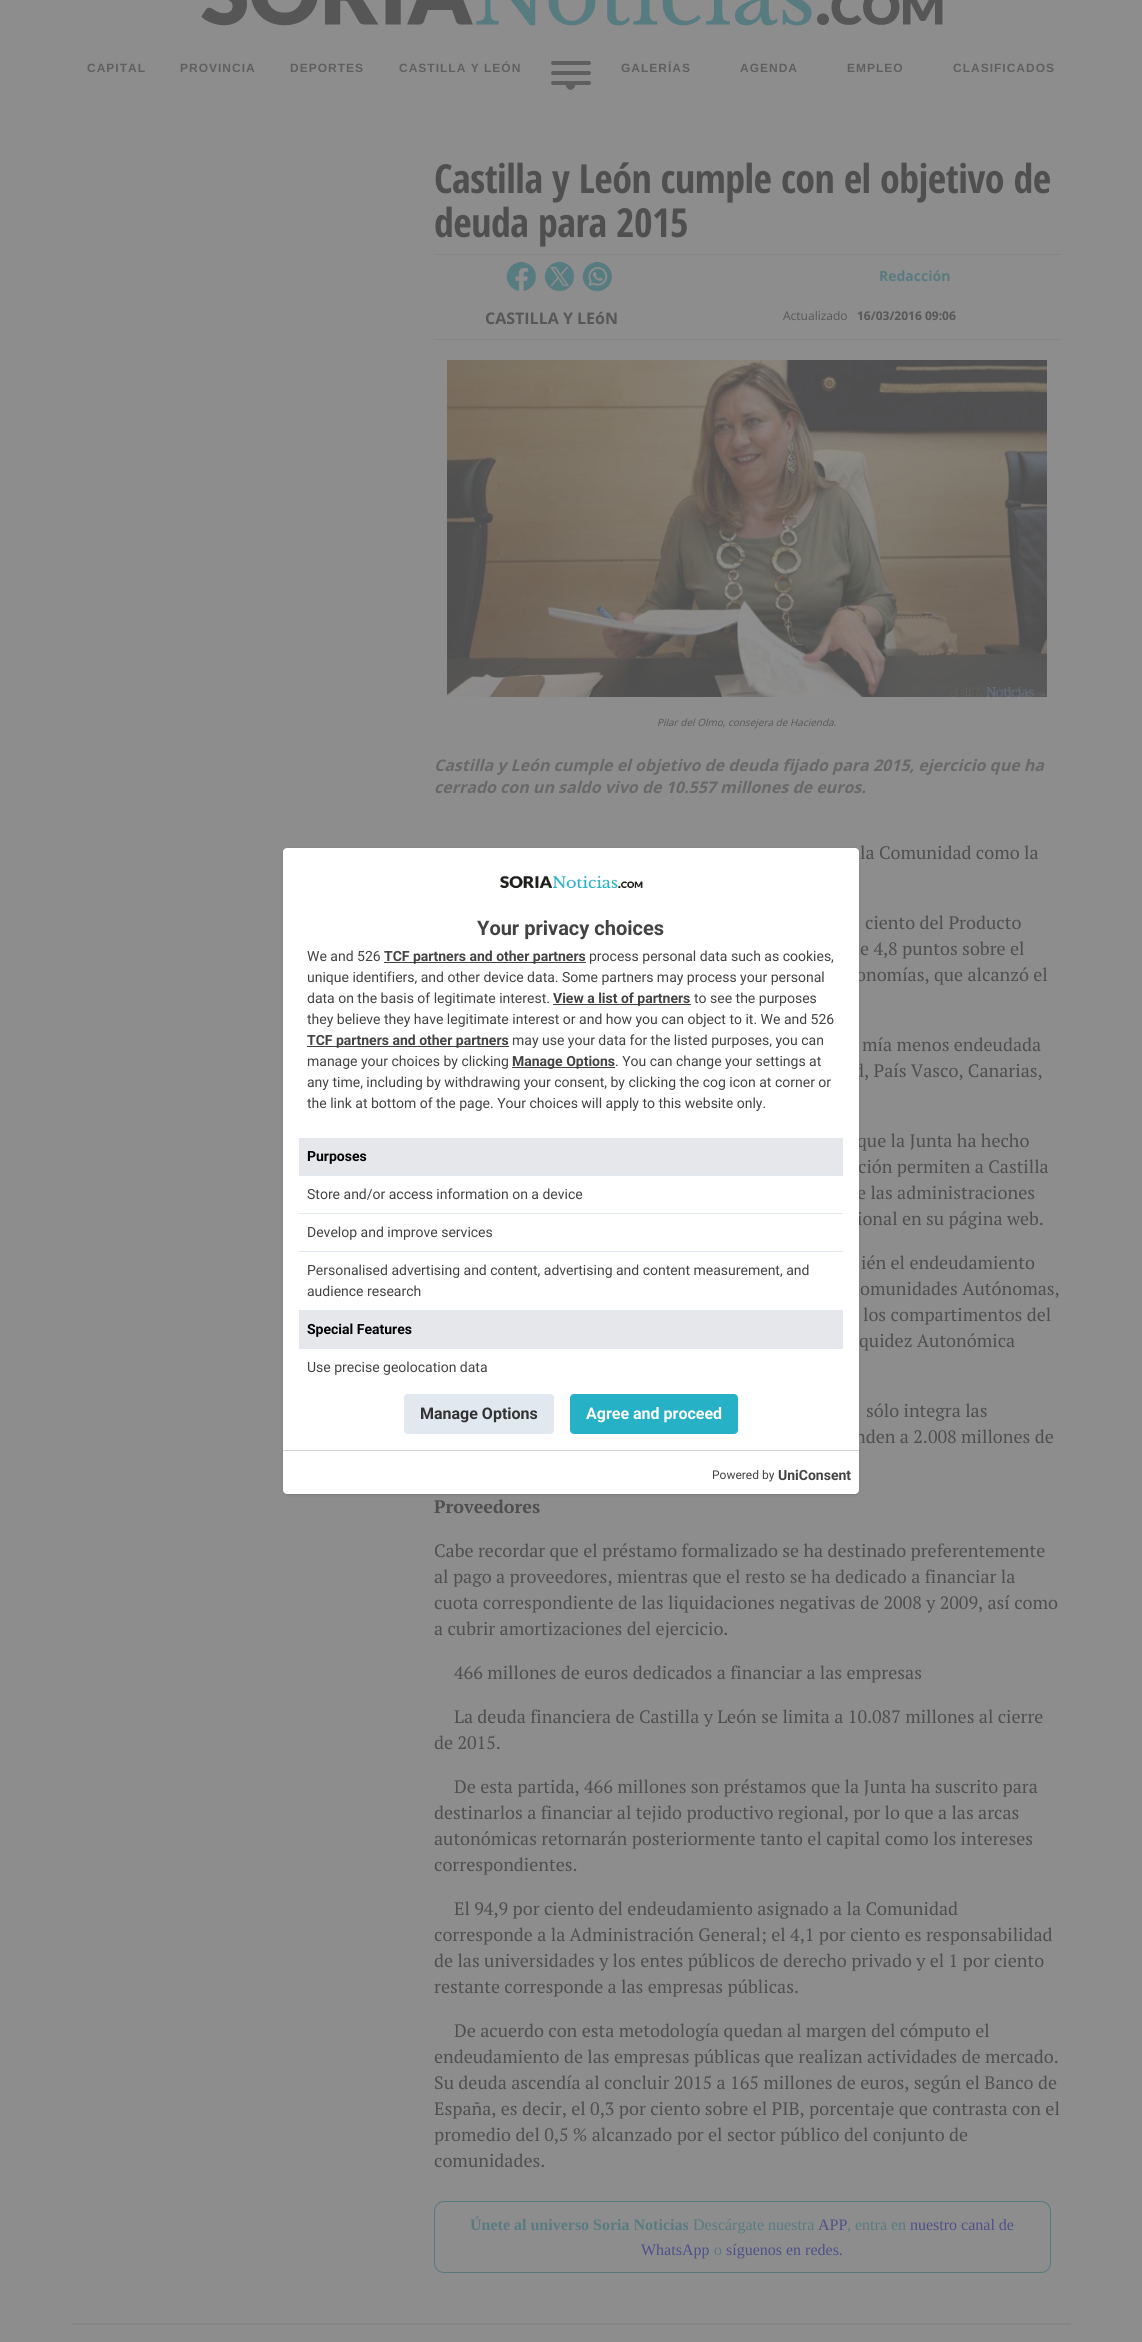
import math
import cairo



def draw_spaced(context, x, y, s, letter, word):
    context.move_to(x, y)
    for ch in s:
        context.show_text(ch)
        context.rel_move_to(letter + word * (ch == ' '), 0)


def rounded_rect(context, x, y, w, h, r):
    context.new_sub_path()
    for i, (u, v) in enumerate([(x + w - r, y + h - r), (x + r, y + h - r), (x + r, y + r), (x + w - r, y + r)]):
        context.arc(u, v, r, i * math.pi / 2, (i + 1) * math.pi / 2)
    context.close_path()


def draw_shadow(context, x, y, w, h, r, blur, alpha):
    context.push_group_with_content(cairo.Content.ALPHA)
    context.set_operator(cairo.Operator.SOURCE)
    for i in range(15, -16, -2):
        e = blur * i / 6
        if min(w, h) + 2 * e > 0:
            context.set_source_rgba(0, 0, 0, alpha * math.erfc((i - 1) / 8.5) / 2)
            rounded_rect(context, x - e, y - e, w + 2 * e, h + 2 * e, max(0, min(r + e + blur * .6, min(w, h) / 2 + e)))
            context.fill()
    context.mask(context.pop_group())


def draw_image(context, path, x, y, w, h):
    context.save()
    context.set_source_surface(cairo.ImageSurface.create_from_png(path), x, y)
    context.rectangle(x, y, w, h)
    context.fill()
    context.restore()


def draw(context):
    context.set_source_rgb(141 / 255, 141 / 255, 141 / 255)
    context.paint()
    draw_image(context, "images/1.png", 201, 0, 742, 26)
    context.set_source_rgb(95 / 255, 95 / 255, 95 / 255)
    rounded_rect(context, 551, 71, 40, 4, 2)
    context.fill()
    rounded_rect(context, 551, 61, 40, 4, 2)
    context.fill()
    rounded_rect(context, 551, 81, 40, 4, 2)
    context.fill()
    draw_image(context, "images/2.png", 566, 85, 9, 5)
    context.set_source_rgb(134 / 255, 134 / 255, 134 / 255)
    context.rectangle(72, 2323, 999, 2)
    context.fill()
    context.rectangle(434, 254, 627, 1)
    context.fill()
    context.rectangle(434, 339, 627, 1)
    context.fill()
    draw_image(context, "images/3.png", 506, 262, 31, 30)
    draw_image(context, "images/4.png", 544, 261, 31, 31)
    draw_image(context, "images/5.png", 582, 262, 31, 30)
    draw_image(context, "images/6.png", 447, 360, 600, 337)
    rounded_rect(context, 434.5, 2201.5, 616, 71, 9.5)
    context.set_source_rgb(84 / 255, 122 / 255, 126 / 255)
    context.set_line_width(1)
    context.stroke()
    context.set_source_rgb(0, 0, 0)
    draw_shadow(context, 284, 850, 574, 644, 3, 1, 0.1)
    draw_shadow(context, 283, 849, 576, 646, 4, 1.5, 0.1)
    context.select_font_face("Liberation Sans", cairo.FontSlant.NORMAL, cairo.FontWeight.BOLD)
    context.set_font_size(12)
    context.set_source_rgb(95 / 255, 95 / 255, 95 / 255)
    draw_spaced(context, 87, 72, "CAPITAL", 1, 0)
    draw_spaced(context, 180, 72, "PROVINCIA", 1, 0)
    draw_spaced(context, 290, 72, "DEPORTES", 1, 0)
    draw_spaced(context, 399, 72, "CASTILLA Y LEÓN", 1, 0)
    draw_spaced(context, 621, 72, "GALERÍAS", 1, 0)
    draw_spaced(context, 740, 72, "AGENDA", 1, 0)
    draw_spaced(context, 847, 72, "EMPLEO", 1, 0)
    draw_spaced(context, 953, 72, "CLASIFICADOS", 1, 0)
    context.select_font_face("Open Sans Condensed", cairo.FontSlant.NORMAL, cairo.FontWeight.BOLD)
    context.set_font_size(40)
    context.set_source_rgb(79 / 255, 79 / 255, 79 / 255)
    draw_spaced(context, 434, 193, "Castilla y León cumple con el objetivo de", -0.5, 0)
    draw_spaced(context, 434, 237, "deuda para 2015", -0.5, 0)
    context.select_font_face("Open Sans", cairo.FontSlant.NORMAL, cairo.FontWeight.BOLD)
    context.set_font_size(14)
    context.set_source_rgb(88 / 255, 123 / 255, 128 / 255)
    context.move_to(879, 281)
    context.show_text("Redacción")
    context.set_font_size(16)
    context.set_source_rgb(87 / 255, 87 / 255, 87 / 255)
    context.move_to(485, 324)
    context.show_text("CASTILLA Y LEóN")
    context.select_font_face("Open Sans")
    context.set_font_size(12)
    context.move_to(783, 320)
    context.show_text("Actualizado")
    context.select_font_face("Open Sans", cairo.FontSlant.NORMAL, cairo.FontWeight.BOLD)
    context.move_to(857, 320)
    context.show_text("16/03/2016 09:06")
    context.select_font_face("Open Sans", cairo.FontSlant.ITALIC)
    context.set_font_size(10)
    context.move_to(657, 726)
    context.show_text("Pilar del Olmo, consejera de Hacienda.")
    context.select_font_face("Open Sans", cairo.FontSlant.ITALIC, cairo.FontWeight.BOLD)
    context.set_font_size(16)
    context.set_source_rgb(104 / 255, 104 / 255, 104 / 255)
    context.move_to(434, 771)
    context.show_text("Castilla y León cumple el objetivo de deuda fijado para 2015, ejercicio que ha")
    context.move_to(434, 793)
    context.show_text("cerrado con un saldo vivo de 10.557 millones de euros.")
    context.select_font_face("PT Serif")
    context.set_font_size(18)
    context.set_source_rgb(79 / 255, 79 / 255, 79 / 255)
    context.move_to(860, 859)
    context.show_text("la Comunidad como la")
    context.move_to(865, 929)
    context.show_text("ciento del Producto")
    context.move_to(860, 955)
    context.show_text("e 4,8 puntos sobre el")
    context.move_to(856, 981)
    context.show_text("onomías, que alcanzó el")
    context.move_to(862, 1051)
    context.show_text("mía menos endeudada")
    context.move_to(854, 1077)
    context.show_text("d, País Vasco, Canarias,")
    context.move_to(857, 1147)
    context.show_text("que la Junta ha hecho")
    context.move_to(858, 1173)
    context.show_text("ción permiten a Castilla")
    context.move_to(857, 1199)
    context.show_text("e las administraciones")
    context.move_to(857, 1225)
    context.show_text("ional en su página web.")
    context.move_to(861, 1269)
    context.show_text("ién el endeudamiento")
    context.move_to(860, 1295)
    context.show_text("omunidades Autónomas,")
    context.move_to(863, 1321)
    context.show_text("los compartimentos del")
    context.move_to(859, 1347)
    context.show_text("quidez Autonómica")
    context.move_to(866, 1417)
    context.show_text("sólo integra las")
    context.move_to(855, 1443)
    context.show_text("nden a 2.008 millones de")
    context.select_font_face("PT Serif", cairo.FontSlant.NORMAL, cairo.FontWeight.BOLD)
    context.move_to(434, 1513)
    context.show_text("Proveedores")
    context.select_font_face("PT Serif")
    context.move_to(434, 1557)
    context.show_text("Cabe recordar que el préstamo formalizado se ha destinado preferentemente")
    context.move_to(434, 1583)
    context.show_text("al pago a proveedores, mientras que el resto se ha dedicado a financiar la")
    context.move_to(434, 1609)
    context.show_text("cuota correspondiente de las liquidaciones negativas de 2008 y 2009, así como")
    context.move_to(434, 1635)
    context.show_text("a cubrir amortizaciones del ejercicio.")
    context.move_to(454, 1679)
    context.show_text("466 millones de euros dedicados a financiar a las empresas")
    context.move_to(454, 1723)
    context.show_text("La deuda financiera de Castilla y León se limita a 10.087 millones al cierre")
    context.move_to(434, 1749)
    context.show_text("de 2015.")
    context.move_to(454, 1793)
    context.show_text("De esta partida, 466 millones son préstamos que la Junta ha suscrito para")
    context.move_to(434, 1819)
    context.show_text("destinarlos a financiar al tejido productivo regional, por lo que a las arcas")
    context.move_to(434, 1845)
    context.show_text("autonómicas retornarán posteriormente tanto el capital como los intereses")
    context.move_to(434, 1871)
    context.show_text("correspondientes.")
    context.move_to(454, 1915)
    context.show_text("El 94,9 por ciento del endeudamiento asignado a la Comunidad")
    context.move_to(434, 1941)
    context.show_text("corresponde a la Administración General; el 4,1 por ciento es responsabilidad")
    context.move_to(434, 1967)
    context.show_text("de las universidades y los entes públicos de derecho privado y el 1 por ciento")
    context.move_to(434, 1993)
    context.show_text("restante corresponde a las empresas públicas.")
    context.move_to(454, 2037)
    context.show_text("De acuerdo con esta metodología quedan al margen del cómputo el")
    context.move_to(434, 2063)
    context.show_text("endeudamiento de las empresas públicas que realizan actividades de mercado.")
    context.move_to(434, 2089)
    context.show_text("Su deuda ascendía al concluir 2015 a 165 millones de euros, según el Banco de")
    context.move_to(434, 2115)
    context.show_text("España, es decir, el 0,3 por ciento sobre el PIB, porcentaje que contrasta con el")
    context.move_to(434, 2141)
    context.show_text("promedio del 0,5 % alcanzado por el sector público del conjunto de")
    context.move_to(434, 2167)
    context.show_text("comunidades.")
    context.select_font_face("Liberation Serif", cairo.FontSlant.NORMAL, cairo.FontWeight.BOLD)
    context.set_font_size(16)
    context.set_source_rgb(88 / 255, 123 / 255, 128 / 255)
    context.move_to(470, 2230)
    context.show_text("Únete al universo Soria Noticias")
    context.select_font_face("Liberation Serif")
    context.move_to(693, 2230)
    context.show_text("Descárgate nuestra")
    context.set_source_rgb(79 / 255, 79 / 255, 138 / 255)
    context.move_to(818, 2230)
    context.show_text("APP")
    context.set_source_rgb(88 / 255, 123 / 255, 128 / 255)
    context.move_to(847, 2230)
    context.show_text(", entra en")
    context.set_source_rgb(79 / 255, 79 / 255, 138 / 255)
    context.move_to(910, 2230)
    context.show_text("nuestro canal de")
    context.move_to(641, 2255)
    context.show_text("WhatsApp")
    context.set_source_rgb(88 / 255, 123 / 255, 128 / 255)
    context.move_to(714, 2255)
    context.show_text("o")
    context.set_source_rgb(79 / 255, 79 / 255, 138 / 255)
    context.move_to(726, 2255)
    context.show_text("síguenos en redes.")
    context.set_source_rgb(1, 1, 1)
    rounded_rect(context, 283, 848, 576, 646, 4)
    context.fill()
    draw_image(context, "images/7.png", 499, 875, 144, 14)
    context.select_font_face("Roboto", cairo.FontSlant.NORMAL, cairo.FontWeight.BOLD)
    context.set_font_size(20)
    context.set_source_rgb(67 / 255, 67 / 255, 67 / 255)
    context.move_to(477, 935)
    context.show_text("Your privacy choices")
    context.select_font_face("Roboto")
    context.set_font_size(14)
    context.move_to(307, 961)
    context.show_text("We and 526")
    context.rectangle(384, 962, 202, 1)
    context.fill()
    context.select_font_face("Roboto", cairo.FontSlant.NORMAL, cairo.FontWeight.BOLD)
    context.move_to(384, 961)
    context.show_text("TCF partners and other partners")
    context.select_font_face("Roboto")
    context.move_to(589, 961)
    context.show_text("process personal data such as cookies,")
    context.move_to(307, 982)
    context.show_text("unique identifiers, and other device data. Some partners may process your personal")
    context.move_to(307, 1003)
    context.show_text("data on the basis of legitimate interest.")
    context.rectangle(553, 1004, 138, 1)
    context.fill()
    context.select_font_face("Roboto", cairo.FontSlant.NORMAL, cairo.FontWeight.BOLD)
    context.move_to(553, 1003)
    context.show_text("View a list of partners")
    context.select_font_face("Roboto")
    context.move_to(694, 1003)
    context.show_text("to see the purposes")
    context.move_to(307, 1024)
    context.show_text("they believe they have legitimate interest or and how you can object to it. We and 526")
    context.rectangle(307, 1046, 202, 1)
    context.fill()
    context.select_font_face("Roboto", cairo.FontSlant.NORMAL, cairo.FontWeight.BOLD)
    context.move_to(307, 1045)
    context.show_text("TCF partners and other partners")
    context.select_font_face("Roboto")
    context.move_to(512, 1045)
    context.show_text("may use your data for the listed purposes, you can")
    context.move_to(307, 1066)
    context.show_text("manage your choices by clicking")
    context.rectangle(512, 1067, 103, 1)
    context.fill()
    context.select_font_face("Roboto", cairo.FontSlant.NORMAL, cairo.FontWeight.BOLD)
    context.move_to(512, 1066)
    context.show_text("Manage Options")
    context.select_font_face("Roboto")
    context.move_to(615, 1066)
    context.show_text(". You can change your settings at")
    context.move_to(307, 1087)
    context.show_text("any time, including by withdrawing your consent, by clicking the cog icon at corner or")
    context.move_to(307, 1108)
    context.show_text("the link at bottom of the page. Your choices will apply to this website only.")
    context.set_source_rgb(229 / 255, 231 / 255, 235 / 255)
    context.rectangle(299, 1138, 544, 37)
    context.fill()
    context.set_source_rgb(226 / 255, 232 / 255, 240 / 255)
    context.rectangle(299, 1175, 544, 1)
    context.fill()
    context.select_font_face("Roboto", cairo.FontSlant.NORMAL, cairo.FontWeight.BOLD)
    context.set_source_rgb(0, 0, 0)
    context.move_to(307, 1161)
    context.show_text("Purposes")
    context.set_source_rgb(226 / 255, 232 / 255, 240 / 255)
    context.rectangle(299, 1213, 544, 1)
    context.fill()
    context.select_font_face("Roboto")
    context.set_source_rgb(67 / 255, 67 / 255, 67 / 255)
    context.move_to(307, 1199)
    context.show_text("Store and/or access information on a device")
    context.set_source_rgb(226 / 255, 232 / 255, 240 / 255)
    context.rectangle(299, 1251, 544, 1)
    context.fill()
    context.set_source_rgb(67 / 255, 67 / 255, 67 / 255)
    context.move_to(307, 1237)
    context.show_text("Develop and improve services")
    context.set_source_rgb(226 / 255, 232 / 255, 240 / 255)
    context.rectangle(299, 1310, 544, 1)
    context.fill()
    context.set_source_rgb(67 / 255, 67 / 255, 67 / 255)
    context.move_to(307, 1275)
    context.show_text("Personalised advertising and content, advertising and content measurement, and")
    context.move_to(307, 1296)
    context.show_text("audience research")
    context.set_source_rgb(229 / 255, 231 / 255, 235 / 255)
    context.rectangle(299, 1311, 544, 37)
    context.fill()
    context.set_source_rgb(226 / 255, 232 / 255, 240 / 255)
    context.rectangle(299, 1348, 544, 1)
    context.fill()
    context.select_font_face("Roboto", cairo.FontSlant.NORMAL, cairo.FontWeight.BOLD)
    context.set_source_rgb(0, 0, 0)
    context.move_to(307, 1334)
    context.show_text("Special Features")
    context.select_font_face("Roboto")
    context.set_source_rgb(67 / 255, 67 / 255, 67 / 255)
    context.move_to(307, 1372)
    context.show_text("Use precise geolocation data")
    context.set_source_rgb(226 / 255, 232 / 255, 240 / 255)
    rounded_rect(context, 404, 1394, 150, 40, 4)
    context.fill()
    context.select_font_face("Roboto", cairo.FontSlant.NORMAL, cairo.FontWeight.BOLD)
    context.set_font_size(16)
    context.set_source_rgb(51 / 255, 51 / 255, 51 / 255)
    context.move_to(420, 1419)
    context.show_text("Manage Options")
    context.set_source_rgb(39 / 255, 177 / 255, 198 / 255)
    rounded_rect(context, 570, 1394, 168, 40, 4)
    context.fill()
    context.set_source_rgb(1, 1, 1)
    context.move_to(586, 1419)
    context.show_text("Agree and proceed")
    context.set_source_rgb(209 / 255, 213 / 255, 219 / 255)
    context.rectangle(283, 1450, 576, 1)
    context.fill()
    context.select_font_face("Roboto")
    context.set_font_size(12)
    context.set_source_rgb(67 / 255, 67 / 255, 67 / 255)
    context.move_to(712, 1479)
    context.show_text("Powered by")
    context.select_font_face("Roboto", cairo.FontSlant.NORMAL, cairo.FontWeight.BOLD)
    context.set_font_size(14)
    context.move_to(778, 1480)
    context.show_text("UniConsent")


surface = cairo.ImageSurface(cairo.Format.RGB24, 1142, 2342)
context = cairo.Context(surface)
options = cairo.FontOptions()
options.set_hint_metrics(cairo.HintMetrics.OFF)
options.set_hint_style(cairo.HintStyle.NONE)
context.set_font_options(options)
context.set_miter_limit(4)
draw(context)
surface.write_to_png("out.png")
